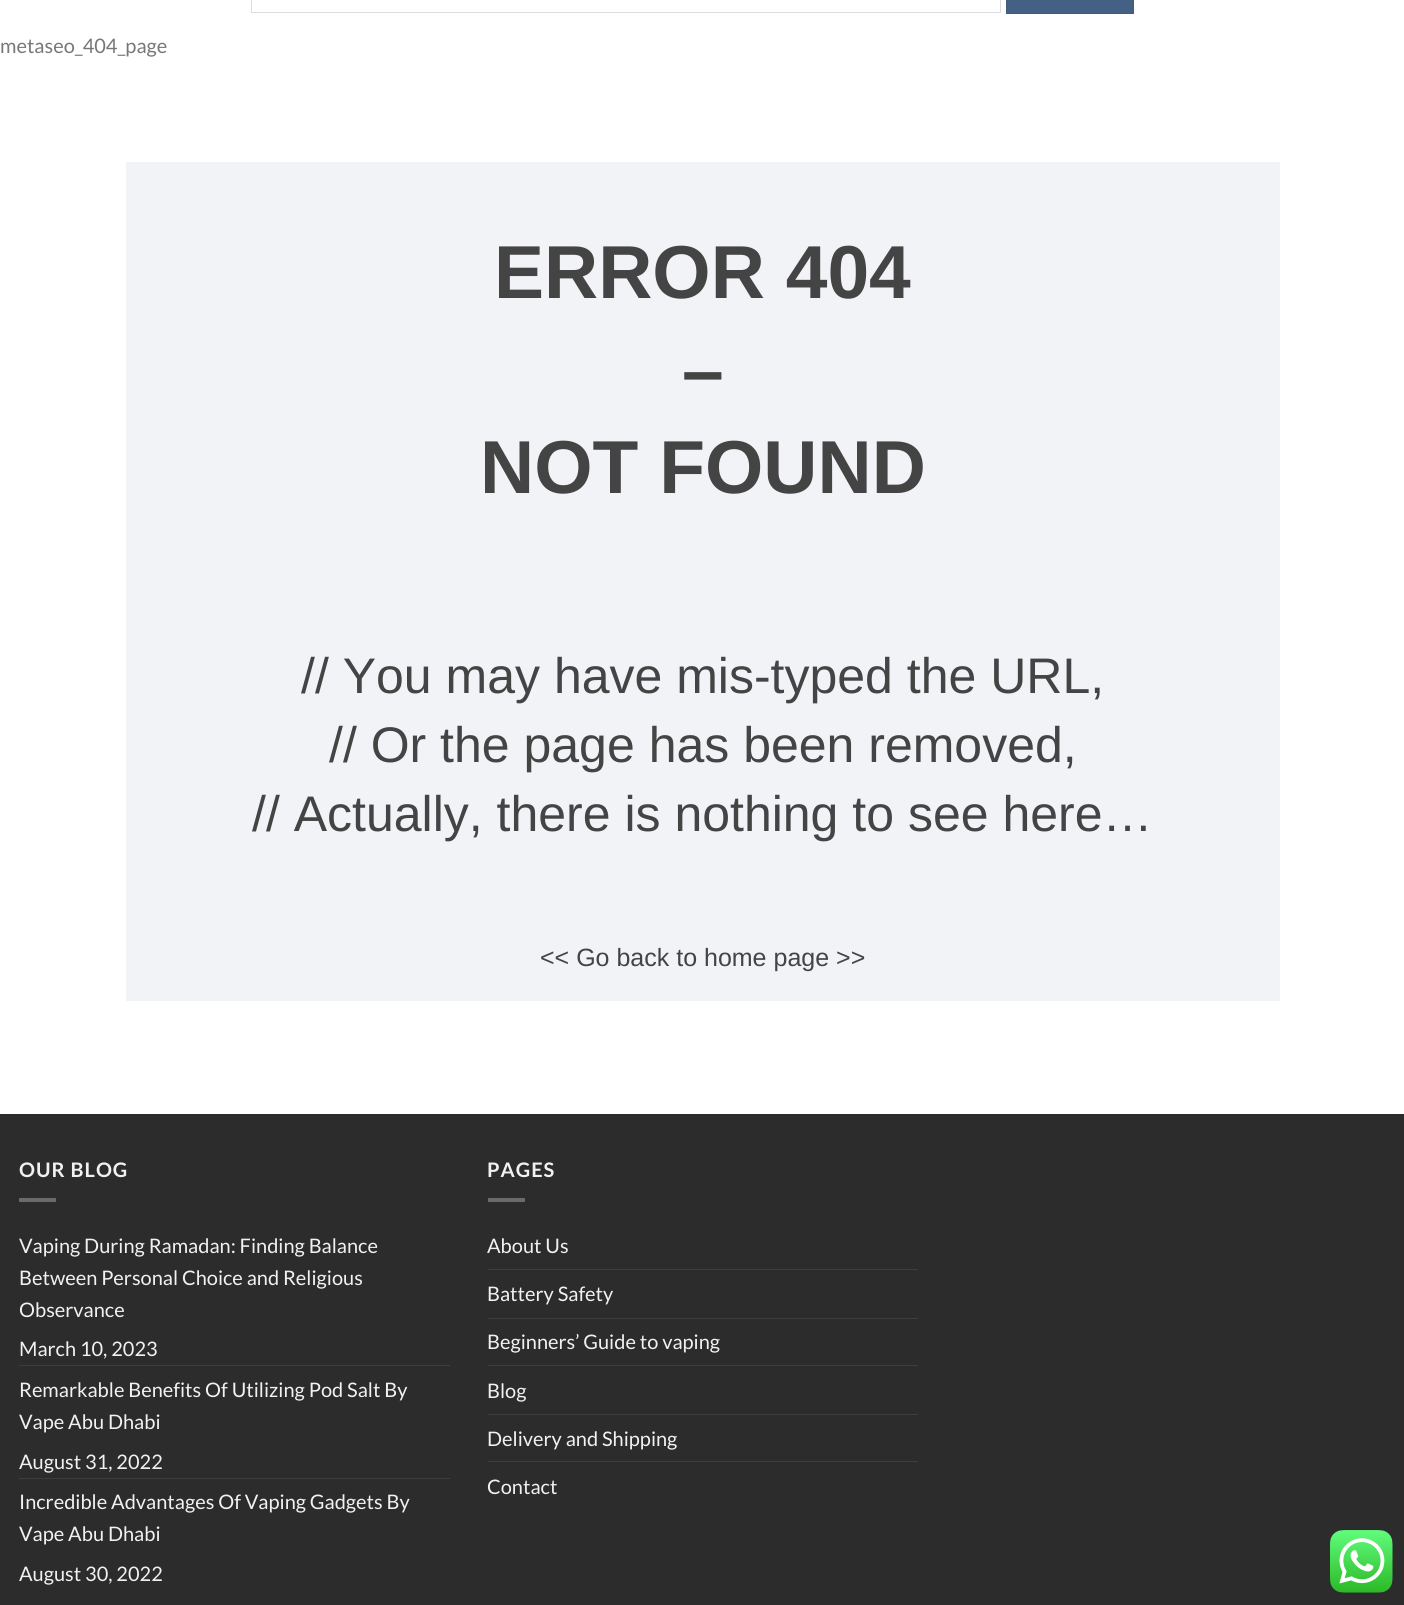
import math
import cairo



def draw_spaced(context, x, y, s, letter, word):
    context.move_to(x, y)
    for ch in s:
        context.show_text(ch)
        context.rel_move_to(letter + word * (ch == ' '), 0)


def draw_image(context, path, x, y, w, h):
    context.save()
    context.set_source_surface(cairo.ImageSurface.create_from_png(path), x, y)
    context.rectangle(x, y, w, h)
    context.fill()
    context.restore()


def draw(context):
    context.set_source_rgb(1, 1, 1)
    context.paint()
    context.rectangle(251.5, -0.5, 749, 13)
    context.set_source_rgb(221 / 255, 221 / 255, 221 / 255)
    context.set_line_width(1)
    context.stroke()
    context.set_source_rgb(68 / 255, 96 / 255, 132 / 255)
    context.rectangle(1006.5, -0.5, 127, 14)
    context.fill_preserve()
    context.set_source_rgb(65 / 255, 91 / 255, 125 / 255)
    context.stroke()
    context.set_source_rgb(242 / 255, 243 / 255, 247 / 255)
    context.rectangle(126, 162, 1154, 839)
    context.fill()
    context.set_source_rgb(44 / 255, 44 / 255, 44 / 255)
    context.rectangle(0, 1115, 1404, 490)
    context.fill()
    context.set_source_rgb(42 / 255, 42 / 255, 42 / 255)
    context.rectangle(0, 1114, 1404, 1)
    context.fill()
    context.set_source_rgb(107 / 255, 107 / 255, 107 / 255)
    context.rectangle(19, 1198, 37, 4)
    context.fill()
    context.set_source_rgb(61 / 255, 61 / 255, 61 / 255)
    context.rectangle(19, 1365, 431, 1)
    context.fill()
    context.rectangle(19, 1478, 431, 1)
    context.fill()
    context.set_source_rgb(107 / 255, 107 / 255, 107 / 255)
    context.rectangle(488, 1198, 37, 4)
    context.fill()
    context.set_source_rgb(61 / 255, 61 / 255, 61 / 255)
    context.rectangle(488, 1269, 430, 1)
    context.fill()
    context.rectangle(488, 1318, 430, 1)
    context.fill()
    context.rectangle(488, 1365, 430, 1)
    context.fill()
    context.rectangle(488, 1414, 430, 1)
    context.fill()
    context.rectangle(488, 1461, 430, 1)
    context.fill()
    draw_image(context, "images/1.png", 1330, 1530, 63, 63)
    context.select_font_face("Lato")
    context.set_font_size(20)
    context.set_source_rgb(119 / 255, 119 / 255, 119 / 255)
    context.move_to(0, 53)
    context.show_text("metaseo_404_page")
    context.select_font_face("Liberation Sans", cairo.FontSlant.NORMAL, cairo.FontWeight.BOLD)
    context.set_font_size(75)
    context.set_source_rgb(68 / 255, 68 / 255, 68 / 255)
    context.move_to(494, 298)
    context.show_text("ERROR 404")
    context.move_to(682, 396)
    context.show_text("–")
    context.move_to(480, 493)
    context.show_text("NOT FOUND")
    context.select_font_face("Liberation Sans")
    context.set_font_size(50)
    context.move_to(301, 693)
    context.show_text("// You may have mis-typed the URL,")
    context.move_to(329, 762)
    context.show_text("// Or the page has been removed,")
    context.move_to(252, 831)
    context.show_text("// Actually, there is nothing to see here…")
    context.set_font_size(25)
    context.move_to(540, 966)
    context.show_text("<< Go back to home page >>")
    context.select_font_face("Lato", cairo.FontSlant.NORMAL, cairo.FontWeight.BOLD)
    context.set_font_size(20)
    context.set_source_rgb(241 / 255, 241 / 255, 241 / 255)
    draw_spaced(context, 19, 1177, "OUR BLOG", 1, 0)
    context.select_font_face("Lato")
    context.move_to(19, 1253)
    context.show_text("Vaping During Ramadan: Finding Balance")
    context.move_to(19, 1285)
    context.show_text("Between Personal Choice and Religious")
    context.move_to(19, 1317)
    context.show_text("Observance")
    context.move_to(19, 1356)
    context.show_text("March 10, 2023")
    context.move_to(19, 1397)
    context.show_text("Remarkable Benefits Of Utilizing Pod Salt By")
    context.move_to(19, 1429)
    context.show_text("Vape Abu Dhabi")
    context.move_to(19, 1469)
    context.show_text("August 31, 2022")
    context.move_to(19, 1509)
    context.show_text("Incredible Advantages Of Vaping Gadgets By")
    context.move_to(19, 1541)
    context.show_text("Vape Abu Dhabi")
    context.move_to(19, 1581)
    context.show_text("August 30, 2022")
    context.select_font_face("Lato", cairo.FontSlant.NORMAL, cairo.FontWeight.BOLD)
    draw_spaced(context, 487, 1177, "PAGES", 1, 0)
    context.select_font_face("Lato")
    context.move_to(487, 1253)
    context.show_text("About Us")
    context.move_to(487, 1301)
    context.show_text("Battery Safety")
    context.move_to(487, 1349)
    context.show_text("Beginners’ Guide to vaping")
    context.move_to(487, 1398)
    context.show_text("Blog")
    context.move_to(487, 1446)
    context.show_text("Delivery and Shipping")
    context.move_to(487, 1494)
    context.show_text("Contact")


surface = cairo.ImageSurface(cairo.Format.RGB24, 1404, 1605)
context = cairo.Context(surface)
options = cairo.FontOptions()
options.set_hint_metrics(cairo.HintMetrics.OFF)
options.set_hint_style(cairo.HintStyle.NONE)
context.set_font_options(options)
context.set_miter_limit(4)
draw(context)
surface.write_to_png("out.png")
